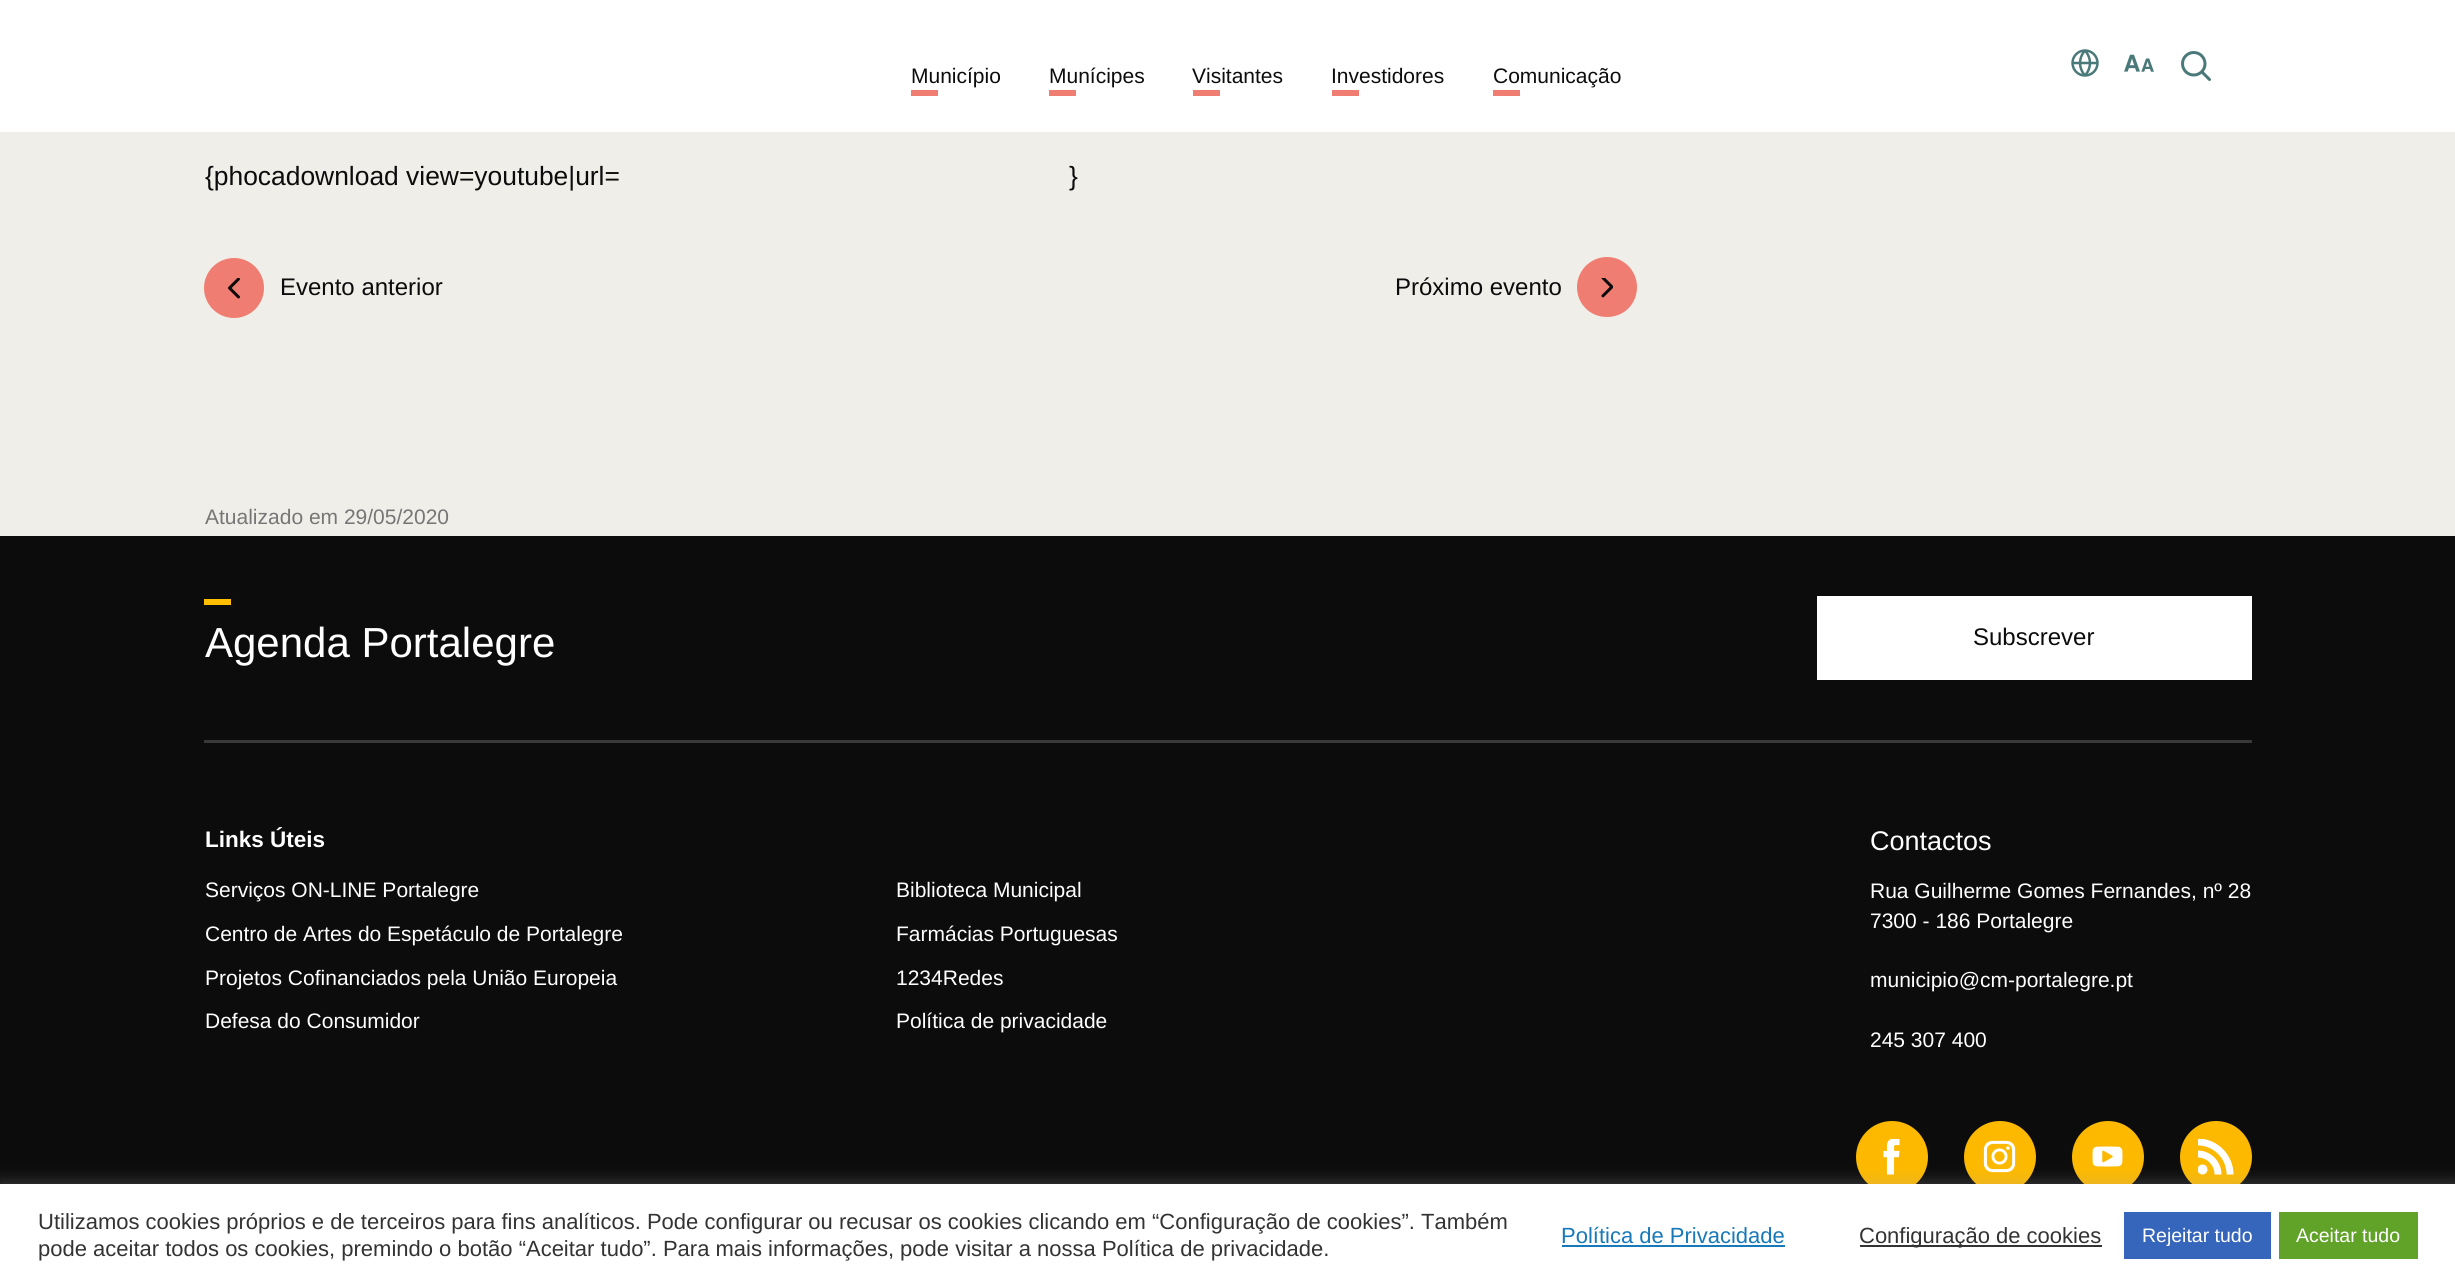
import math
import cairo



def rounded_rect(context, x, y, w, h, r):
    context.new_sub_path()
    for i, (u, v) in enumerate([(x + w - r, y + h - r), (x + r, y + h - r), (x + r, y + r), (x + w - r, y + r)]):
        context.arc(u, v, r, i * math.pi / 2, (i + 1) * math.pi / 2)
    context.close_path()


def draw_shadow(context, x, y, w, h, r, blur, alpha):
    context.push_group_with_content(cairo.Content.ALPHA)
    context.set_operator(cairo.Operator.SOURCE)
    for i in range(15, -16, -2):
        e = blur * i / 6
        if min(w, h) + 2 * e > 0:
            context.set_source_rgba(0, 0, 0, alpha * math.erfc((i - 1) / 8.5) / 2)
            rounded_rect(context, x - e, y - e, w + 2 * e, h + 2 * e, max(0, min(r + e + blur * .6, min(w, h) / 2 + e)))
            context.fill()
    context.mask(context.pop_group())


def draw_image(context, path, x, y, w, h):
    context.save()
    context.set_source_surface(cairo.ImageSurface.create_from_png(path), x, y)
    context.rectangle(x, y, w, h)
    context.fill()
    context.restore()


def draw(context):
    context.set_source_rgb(240 / 255, 238 / 255, 233 / 255)
    context.paint()
    context.set_source_rgb(1, 1, 1)
    context.rectangle(0, 0, 2455, 132)
    context.fill()
    context.set_source_rgb(240 / 255, 125 / 255, 113 / 255)
    context.rectangle(911, 90, 27, 6)
    context.fill()
    context.rectangle(1049, 90, 27, 6)
    context.fill()
    context.rectangle(1193, 90, 27, 6)
    context.fill()
    context.rectangle(1332, 90, 27, 6)
    context.fill()
    context.rectangle(1493, 90, 27, 6)
    context.fill()
    draw_image(context, "images/1.png", 2071, 49, 28, 28)
    draw_image(context, "images/2.png", 2124, 54, 30, 18)
    draw_image(context, "images/3.png", 2181, 51, 30, 30)
    context.arc(234, 288, 30, 0, 2 * math.pi)
    context.fill()
    draw_image(context, "images/4.png", 228, 278, 12, 21)
    context.new_path()
    context.move_to(1607, 317)
    context.curve_to(1590, 317, 1577, 304, 1577, 287)
    context.curve_to(1577, 271, 1590, 257, 1607, 257)
    context.curve_to(1624, 257, 1637, 271, 1637, 287)
    context.curve_to(1637, 304, 1624, 317, 1607, 317)
    context.close_path()
    context.fill()
    draw_image(context, "images/5.png", 1601, 278, 12, 20)
    context.set_source_rgb(12 / 255, 12 / 255, 12 / 255)
    context.rectangle(0, 536, 2455, 648)
    context.fill()
    context.set_source_rgb(1, 190 / 255, 0)
    context.rectangle(204, 599, 27, 6)
    context.fill()
    context.set_source_rgb(1, 1, 1)
    context.rectangle(1817, 596, 435, 84)
    context.fill()
    context.set_source_rgb(57 / 255, 57 / 255, 57 / 255)
    context.rectangle(204, 740, 2048, 3)
    context.fill()
    context.set_source_rgb(252 / 255, 185 / 255, 0)
    context.arc(1892, 1157, 36, 0, 2 * math.pi)
    context.fill()
    draw_image(context, "images/6.png", 1883, 1139, 17, 36)
    context.arc(2000, 1157, 36, 0, 2 * math.pi)
    context.fill()
    draw_image(context, "images/7.png", 1983, 1140, 33, 33)
    context.arc(2108, 1157, 36, 0, 2 * math.pi)
    context.fill()
    draw_image(context, "images/8.png", 2092, 1146, 31, 21)
    context.arc(2216, 1157, 36, 0, 2 * math.pi)
    context.fill()
    draw_image(context, "images/9.png", 2198, 1139, 36, 36)
    context.set_source_rgb(172 / 255, 171 / 255, 171 / 255)
    draw_shadow(context, 0, 1182, 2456, 104, 0, 7.5, 0.3)
    context.set_source_rgb(1, 1, 1)
    context.rectangle(0, 1184, 2455, 102)
    context.fill()
    context.set_source_rgb(23 / 255, 121 / 255, 186 / 255)
    context.rectangle(1562, 1245, 223, 2)
    context.fill()
    context.set_source_rgb(51 / 255, 51 / 255, 51 / 255)
    context.rectangle(1860, 1245, 242, 2)
    context.fill()
    context.set_source_rgb(53 / 255, 102 / 255, 187 / 255)
    context.rectangle(2124, 1212, 147, 47)
    context.fill()
    context.set_source_rgb(97 / 255, 162 / 255, 41 / 255)
    context.rectangle(2279, 1212, 139, 47)
    context.fill()
    context.select_font_face("Liberation Sans")
    context.set_font_size(21)
    context.set_source_rgb(12 / 255, 12 / 255, 12 / 255)
    context.move_to(911, 83)
    context.show_text("Município")
    context.move_to(1049, 83)
    context.show_text("Munícipes")
    context.move_to(1192, 83)
    context.show_text("Visitantes")
    context.move_to(1331, 83)
    context.show_text("Investidores")
    context.move_to(1493, 83)
    context.show_text("Comunicação")
    context.set_font_size(26.4)
    context.move_to(205, 185)
    context.show_text("{phocadownload view=youtube|url=")
    context.move_to(1069, 185)
    context.show_text("}")
    context.set_font_size(24)
    context.move_to(280, 295)
    context.show_text("Evento anterior")
    context.move_to(1395, 295)
    context.show_text("Próximo evento")
    context.set_font_size(21)
    context.set_source_rgb(118 / 255, 118 / 255, 118 / 255)
    context.move_to(205, 524)
    context.show_text("Atualizado em 29/05/2020")
    context.set_font_size(42)
    context.set_source_rgb(1, 1, 1)
    context.move_to(205, 657)
    context.show_text("Agenda Portalegre")
    context.set_font_size(24)
    context.set_source_rgb(12 / 255, 12 / 255, 12 / 255)
    context.move_to(1973, 645)
    context.show_text("Subscrever")
    context.select_font_face("Liberation Sans", cairo.FontSlant.NORMAL, cairo.FontWeight.BOLD)
    context.set_font_size(22.5)
    context.set_source_rgb(1, 1, 1)
    context.move_to(205, 847)
    context.show_text("Links Úteis")
    context.select_font_face("Liberation Sans")
    context.set_font_size(21)
    context.move_to(205, 897)
    context.show_text("Serviços ON-LINE Portalegre")
    context.move_to(896, 897)
    context.show_text("Biblioteca Municipal")
    context.move_to(205, 941)
    context.show_text("Centro de Artes do Espetáculo de Portalegre")
    context.move_to(896, 941)
    context.show_text("Farmácias Portuguesas")
    context.move_to(205, 985)
    context.show_text("Projetos Cofinanciados pela União Europeia")
    context.move_to(896, 985)
    context.show_text("1234Redes")
    context.move_to(205, 1028)
    context.show_text("Defesa do Consumidor")
    context.move_to(896, 1028)
    context.show_text("Política de privacidade")
    context.set_font_size(27)
    context.move_to(1870, 850)
    context.show_text("Contactos")
    context.set_font_size(21)
    context.move_to(1870, 898)
    context.show_text("Rua Guilherme Gomes Fernandes, nº 28")
    context.move_to(1870, 928)
    context.show_text("7300 - 186 Portalegre")
    context.move_to(1870, 987)
    context.show_text("municipio@cm-portalegre.pt")
    context.move_to(1870, 1047)
    context.show_text("245 307 400")
    context.set_font_size(22)
    context.set_source_rgb(51 / 255, 51 / 255, 51 / 255)
    context.move_to(38, 1229)
    context.show_text("Utilizamos cookies próprios e de terceiros para fins analíticos. Pode configurar ou recusar os cookies clicando em “Configuração de cookies”. Também")
    context.move_to(38, 1256)
    context.show_text("pode aceitar todos os cookies, premindo o botão “Aceitar tudo”. Para mais informações, pode visitar a nossa Política de privacidade.")
    context.set_source_rgb(23 / 255, 121 / 255, 186 / 255)
    context.move_to(1561, 1243)
    context.show_text("Política de Privacidade")
    context.set_source_rgb(51 / 255, 51 / 255, 51 / 255)
    context.move_to(1859, 1243)
    context.show_text("Configuração de cookies")
    context.set_font_size(19.5)
    context.set_source_rgb(1, 1, 1)
    context.move_to(2142, 1242)
    context.show_text("Rejeitar tudo")
    context.move_to(2296, 1242)
    context.show_text("Aceitar tudo")


surface = cairo.ImageSurface(cairo.Format.RGB24, 2455, 1286)
context = cairo.Context(surface)
options = cairo.FontOptions()
options.set_hint_metrics(cairo.HintMetrics.OFF)
options.set_hint_style(cairo.HintStyle.NONE)
context.set_font_options(options)
context.set_miter_limit(4)
draw(context)
surface.write_to_png("out.png")
